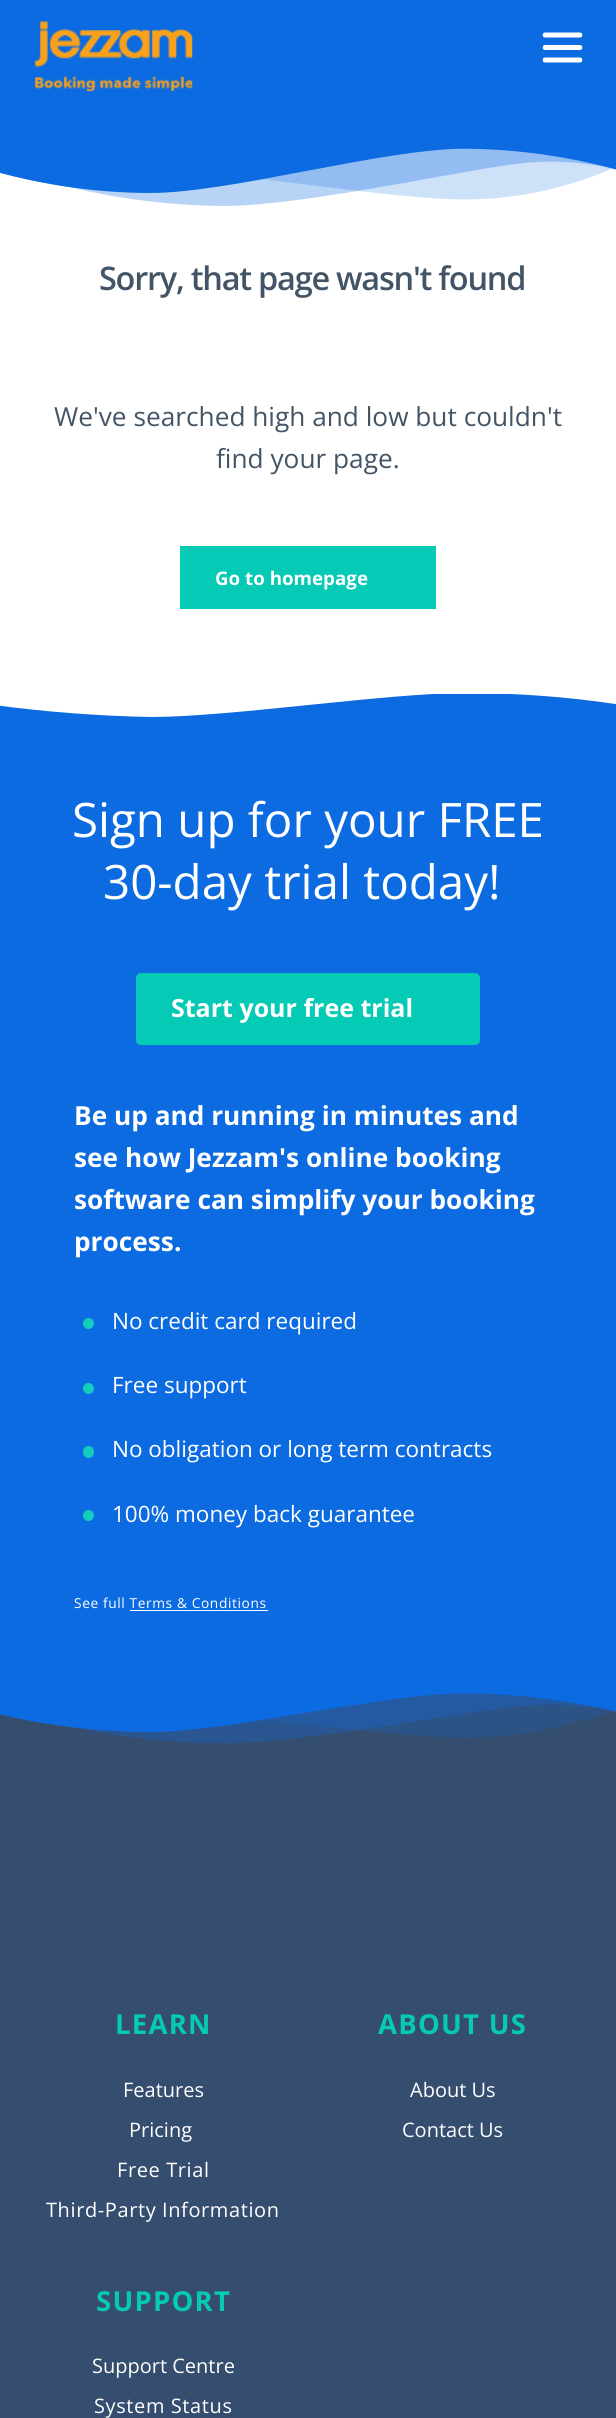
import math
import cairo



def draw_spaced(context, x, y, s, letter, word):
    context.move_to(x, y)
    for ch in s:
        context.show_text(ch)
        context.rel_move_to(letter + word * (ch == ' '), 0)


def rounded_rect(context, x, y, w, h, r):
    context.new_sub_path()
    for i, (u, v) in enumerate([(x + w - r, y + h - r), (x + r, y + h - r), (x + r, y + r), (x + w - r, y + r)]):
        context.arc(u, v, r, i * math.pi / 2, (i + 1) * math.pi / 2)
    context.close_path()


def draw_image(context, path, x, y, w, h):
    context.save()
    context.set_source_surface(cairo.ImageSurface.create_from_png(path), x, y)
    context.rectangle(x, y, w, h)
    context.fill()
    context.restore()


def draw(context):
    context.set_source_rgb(1, 1, 1)
    context.paint()
    context.set_source_rgb(12 / 255, 107 / 255, 225 / 255)
    context.rectangle(0, 0, 616, 116)
    context.fill()
    draw_image(context, "images/1.png", 34, 21, 159, 71)
    draw_image(context, "images/2.png", 542, 32, 41, 31)
    draw_image(context, "images/3.png", 0, 116, 616, 90)
    context.save()
    context.rectangle(0, 694, 616, 40)
    context.clip()
    context.new_path()
    context.move_to(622, 705)
    context.curve_to(570, 697, 518, 693, 465, 693)
    context.curve_to(387, 693, 230, 717, 151, 717)
    context.curve_to(99, 716, 46, 712, -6, 705)
    context.line_to(-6, 734)
    context.line_to(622, 734)
    context.close_path()
    context.fill()
    context.restore()
    context.set_source_rgb(5 / 255, 202 / 255, 182 / 255)
    context.rectangle(180, 546, 256, 63)
    context.fill()
    context.set_source_rgb(12 / 255, 107 / 255, 225 / 255)
    context.rectangle(0, 734, 616, 931)
    context.fill()
    context.set_source_rgb(5 / 255, 202 / 255, 182 / 255)
    rounded_rect(context, 136, 973, 344, 72, 5)
    context.fill()
    context.set_source_rgb(20 / 255, 204 / 255, 187 / 255)
    context.arc(88.5, 1323.5, 5.5, 0, 2 * math.pi)
    context.fill()
    context.arc(88.5, 1388.5, 5.5, 0, 2 * math.pi)
    context.fill()
    rounded_rect(context, 83, 1446, 11, 12, 5.5)
    context.fill()
    context.arc(88.5, 1515.5, 5.5, 0, 2 * math.pi)
    context.fill()
    context.set_source_rgb(1, 1, 1)
    context.rectangle(130, 1610, 138, 1)
    context.fill()
    context.set_source_rgb(53 / 255, 77 / 255, 110 / 255)
    context.rectangle(0, 1693, 616, 725)
    context.fill()
    draw_image(context, "images/4.png", 0, 1665, 616, 79)
    context.select_font_face("Open Sans SemiBold")
    context.set_font_size(32.5)
    context.set_source_rgb(66 / 255, 84 / 255, 102 / 255)
    draw_spaced(context, 99, 290, "Sorry, that page wasn't found", -1.25, 0)
    context.select_font_face("Open Sans")
    context.set_font_size(26.25)
    context.move_to(54, 426)
    context.show_text("We've searched high and low but couldn't")
    context.move_to(216, 468)
    context.show_text("find your page.")
    context.select_font_face("Open Sans", cairo.FontSlant.NORMAL, cairo.FontWeight.BOLD)
    context.set_font_size(18.75)
    context.set_source_rgb(1, 1, 1)
    context.move_to(215, 585)
    context.show_text("Go to homepage")
    context.select_font_face("Open Sans")
    context.set_font_size(47.5)
    context.move_to(72, 837)
    context.show_text("Sign up for your FREE")
    context.move_to(103, 899)
    context.show_text("30-day trial today!")
    context.select_font_face("Open Sans", cairo.FontSlant.NORMAL, cairo.FontWeight.BOLD)
    context.set_font_size(25)
    context.move_to(171, 1017)
    context.show_text("Start your free trial")
    context.set_font_size(26.25)
    context.move_to(74, 1125)
    context.show_text("Be up and running in minutes and")
    context.move_to(74, 1167)
    context.show_text("see how Jezzam's online booking")
    context.move_to(74, 1209)
    context.show_text("software can simplify your booking")
    context.move_to(74, 1251)
    context.show_text("process.")
    context.select_font_face("Open Sans")
    context.set_font_size(22.5)
    context.move_to(112, 1329)
    context.show_text("No credit card required")
    context.move_to(112, 1393)
    context.show_text("Free support")
    context.move_to(112, 1457)
    context.show_text("No obligation or long term contracts")
    context.move_to(112, 1522)
    context.show_text("100% money back guarantee")
    context.set_font_size(13.75)
    draw_spaced(context, 74, 1608, "See full Terms & Conditions", 0.6, 0)
    context.select_font_face("Open Sans", cairo.FontSlant.NORMAL, cairo.FontWeight.BOLD)
    context.set_font_size(27.5)
    context.set_source_rgb(5 / 255, 202 / 255, 182 / 255)
    draw_spaced(context, 115, 2034, "LEARN", 1.25, 0)
    context.select_font_face("Open Sans")
    context.set_font_size(20)
    context.set_source_rgb(1, 1, 1)
    context.move_to(123, 2097)
    context.show_text("Features")
    context.move_to(129, 2137)
    context.show_text("Pricing")
    draw_spaced(context, 117, 2177, "Free Trial", 0.6, 0)
    draw_spaced(context, 46, 2217, "Third-Party Information", 0.6, 0)
    context.select_font_face("Open Sans", cairo.FontSlant.NORMAL, cairo.FontWeight.BOLD)
    context.set_font_size(27.5)
    context.set_source_rgb(5 / 255, 202 / 255, 182 / 255)
    draw_spaced(context, 378, 2034, "ABOUT US", 1.25, 0)
    context.select_font_face("Open Sans")
    context.set_font_size(20)
    context.set_source_rgb(1, 1, 1)
    context.move_to(410, 2097)
    context.show_text("About Us")
    context.move_to(402, 2137)
    context.show_text("Contact Us")
    context.select_font_face("Open Sans", cairo.FontSlant.NORMAL, cairo.FontWeight.BOLD)
    context.set_font_size(27.5)
    context.set_source_rgb(5 / 255, 202 / 255, 182 / 255)
    draw_spaced(context, 96, 2311, "SUPPORT", 1.25, 0)
    context.select_font_face("Open Sans")
    context.set_font_size(20)
    context.set_source_rgb(1, 1, 1)
    context.move_to(92, 2373)
    context.show_text("Support Centre")
    draw_spaced(context, 94, 2413, "System Status", 0.6, 0)


surface = cairo.ImageSurface(cairo.Format.RGB24, 616, 2418)
context = cairo.Context(surface)
options = cairo.FontOptions()
options.set_hint_metrics(cairo.HintMetrics.OFF)
options.set_hint_style(cairo.HintStyle.NONE)
context.set_font_options(options)
context.set_miter_limit(4)
draw(context)
surface.write_to_png("out.png")
